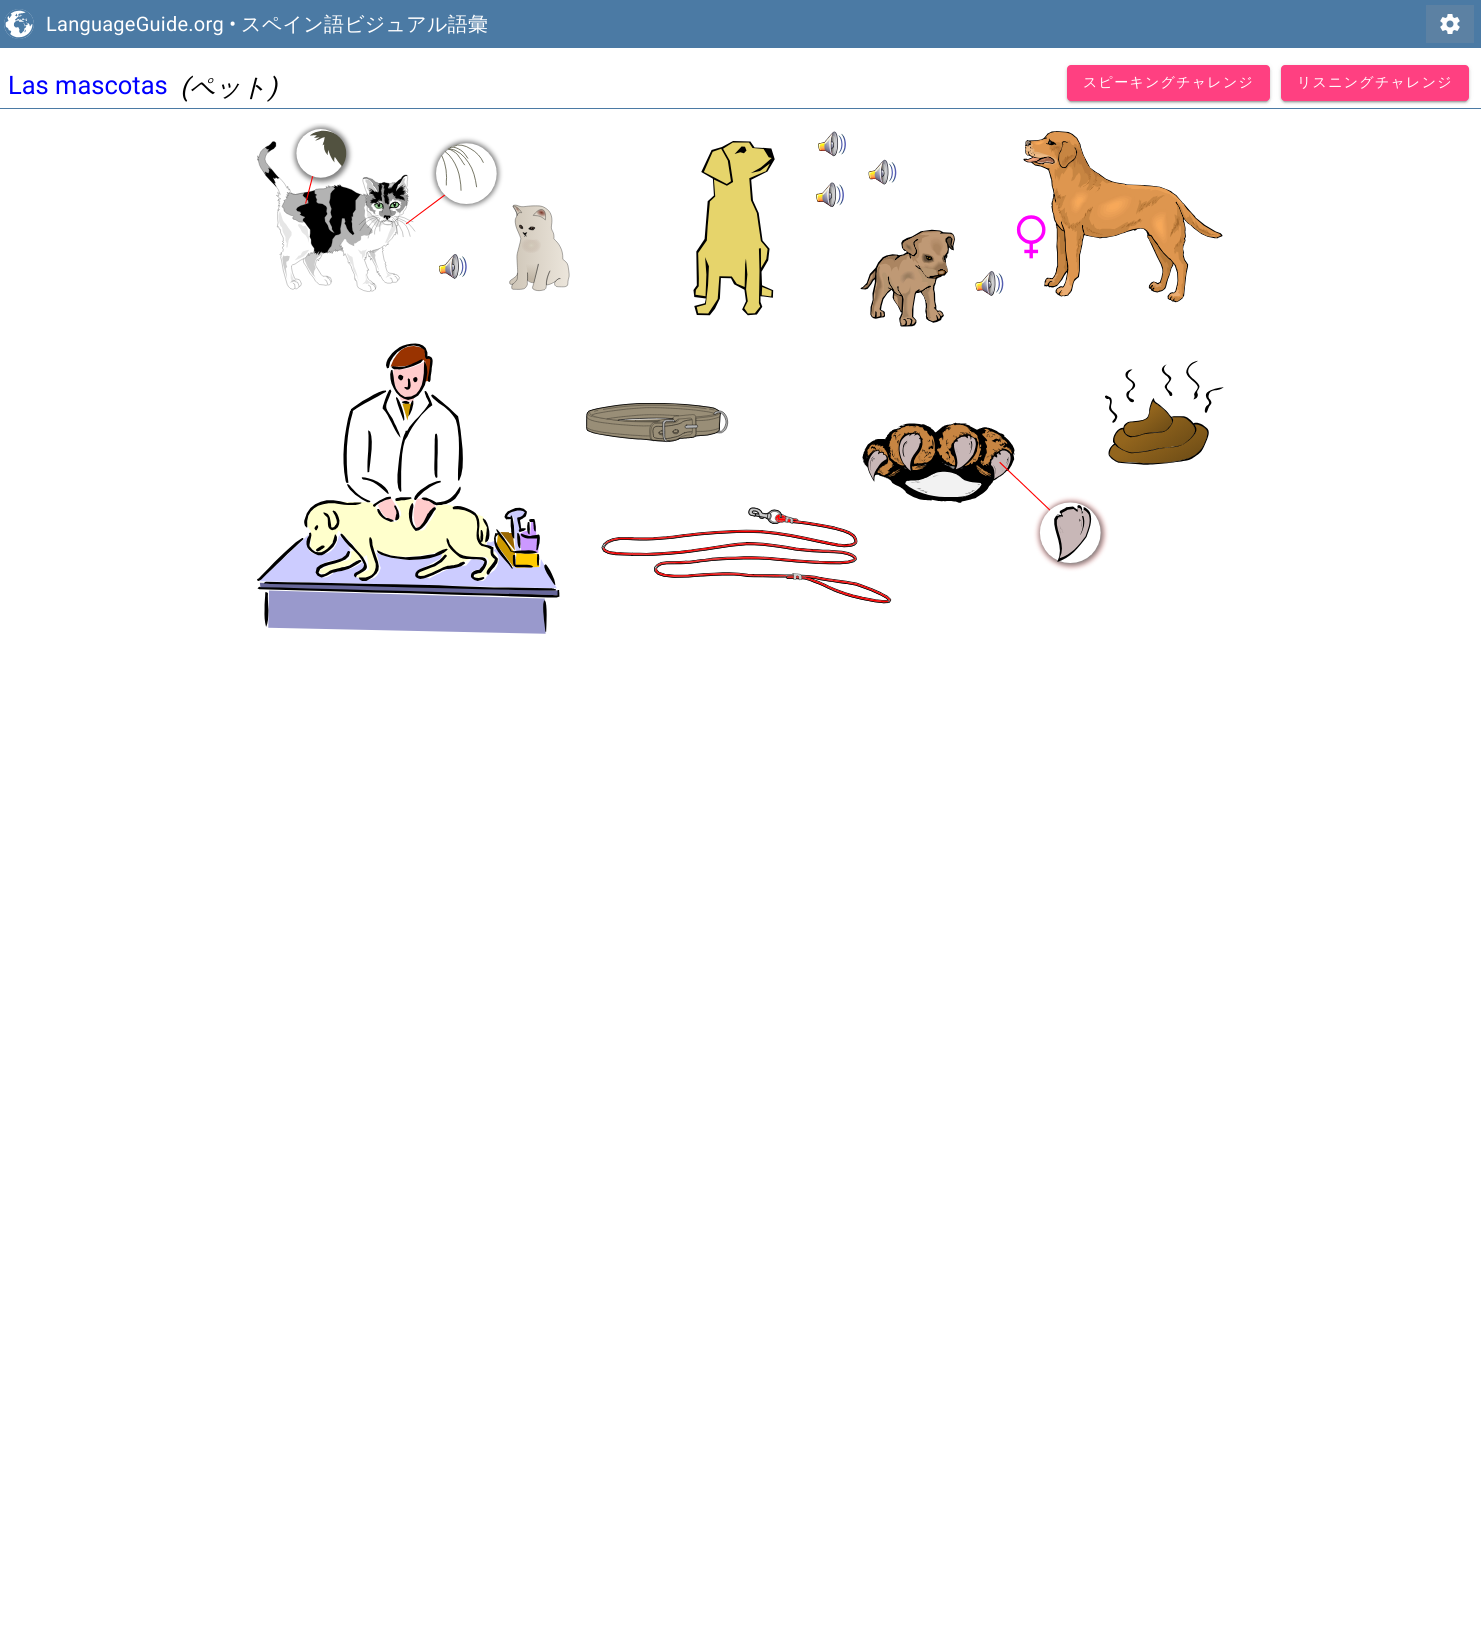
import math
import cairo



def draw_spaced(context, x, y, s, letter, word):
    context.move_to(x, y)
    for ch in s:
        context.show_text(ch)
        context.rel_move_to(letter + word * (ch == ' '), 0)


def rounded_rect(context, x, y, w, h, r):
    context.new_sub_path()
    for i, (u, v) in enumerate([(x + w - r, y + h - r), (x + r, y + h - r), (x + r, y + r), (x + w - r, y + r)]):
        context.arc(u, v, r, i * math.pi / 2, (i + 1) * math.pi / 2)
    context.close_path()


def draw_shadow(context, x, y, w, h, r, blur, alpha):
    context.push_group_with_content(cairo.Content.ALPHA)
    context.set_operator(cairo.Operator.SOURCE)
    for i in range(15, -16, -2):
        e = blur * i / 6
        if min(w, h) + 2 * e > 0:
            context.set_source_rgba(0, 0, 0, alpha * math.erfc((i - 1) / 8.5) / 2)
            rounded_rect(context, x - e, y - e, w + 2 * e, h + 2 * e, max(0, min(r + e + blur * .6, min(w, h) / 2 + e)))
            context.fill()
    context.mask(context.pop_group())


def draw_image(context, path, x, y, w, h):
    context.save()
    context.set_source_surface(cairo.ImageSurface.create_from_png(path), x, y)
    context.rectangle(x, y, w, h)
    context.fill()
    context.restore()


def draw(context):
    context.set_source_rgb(1, 1, 1)
    context.paint()
    context.set_source_rgb(75 / 255, 122 / 255, 164 / 255)
    context.rectangle(0, 0, 1481, 48)
    context.fill()
    draw_image(context, "images/1.png", 4, 9, 30, 30)
    context.set_source_rgb(92 / 255, 129 / 255, 163 / 255)
    context.rectangle(1426, 5, 48, 38)
    context.fill()
    draw_image(context, "images/2.png", 1440, 14, 20, 20)
    context.set_source_rgb(75 / 255, 122 / 255, 164 / 255)
    context.rectangle(0, 108, 1481, 1)
    context.fill()
    context.set_source_rgb(0, 0, 0)
    draw_shadow(context, 1067, 66, 203, 36, 4, 2.5, 0.12)
    draw_shadow(context, 1067, 67, 203, 36, 4, 1, 0.14)
    draw_shadow(context, 1069, 70, 199, 32, 2, 0.5, 0.2)
    context.set_source_rgb(1, 64 / 255, 129 / 255)
    rounded_rect(context, 1067, 65, 203, 36, 4)
    context.fill()
    context.set_source_rgb(0, 0, 0)
    draw_shadow(context, 1281, 66, 188, 36, 4, 2.5, 0.12)
    draw_shadow(context, 1281, 67, 188, 36, 4, 1, 0.14)
    draw_shadow(context, 1283, 70, 184, 32, 2, 0.5, 0.2)
    context.set_source_rgb(1, 64 / 255, 129 / 255)
    rounded_rect(context, 1281, 65, 188, 36, 4)
    context.fill()
    draw_image(context, "images/3.png", 257, 123, 967, 511)
    context.select_font_face("Roboto")
    context.set_font_size(20)
    context.set_source_rgb(1, 1, 1)
    draw_spaced(context, 46, 31, "LanguageGuide.org •", 0.25, 0)
    context.select_font_face("WenQuanYi Zen Hei Medium")
    draw_spaced(context, 241, 31, "スペイン語ビジュアル語彙", 0.25, 0)
    context.select_font_face("Roboto")
    context.set_font_size(25.5)
    context.set_source_rgb(0, 0, 1)
    context.move_to(8, 94)
    context.show_text("Las mascotas")
    context.select_font_face("Roboto", cairo.FontSlant.ITALIC)
    context.set_source_rgb(0, 0, 0)
    context.move_to(180, 96)
    context.show_text("(")
    context.select_font_face("WenQuanYi Zen Hei Medium", cairo.FontSlant.ITALIC)
    context.move_to(189, 96)
    context.show_text("ペット")
    context.select_font_face("Roboto", cairo.FontSlant.ITALIC)
    context.move_to(268, 96)
    context.show_text(")")
    context.select_font_face("WenQuanYi Zen Hei Medium")
    context.set_font_size(14)
    context.set_source_rgb(1, 1, 1)
    draw_spaced(context, 1083, 87, "スピーキングチャレンジ", 1.25, 0)
    draw_spaced(context, 1297, 87, "リスニングチャレンジ", 1.25, 0)


surface = cairo.ImageSurface(cairo.Format.RGB24, 1481, 1637)
context = cairo.Context(surface)
options = cairo.FontOptions()
options.set_hint_metrics(cairo.HintMetrics.OFF)
options.set_hint_style(cairo.HintStyle.NONE)
context.set_font_options(options)
context.set_miter_limit(4)
draw(context)
surface.write_to_png("out.png")
